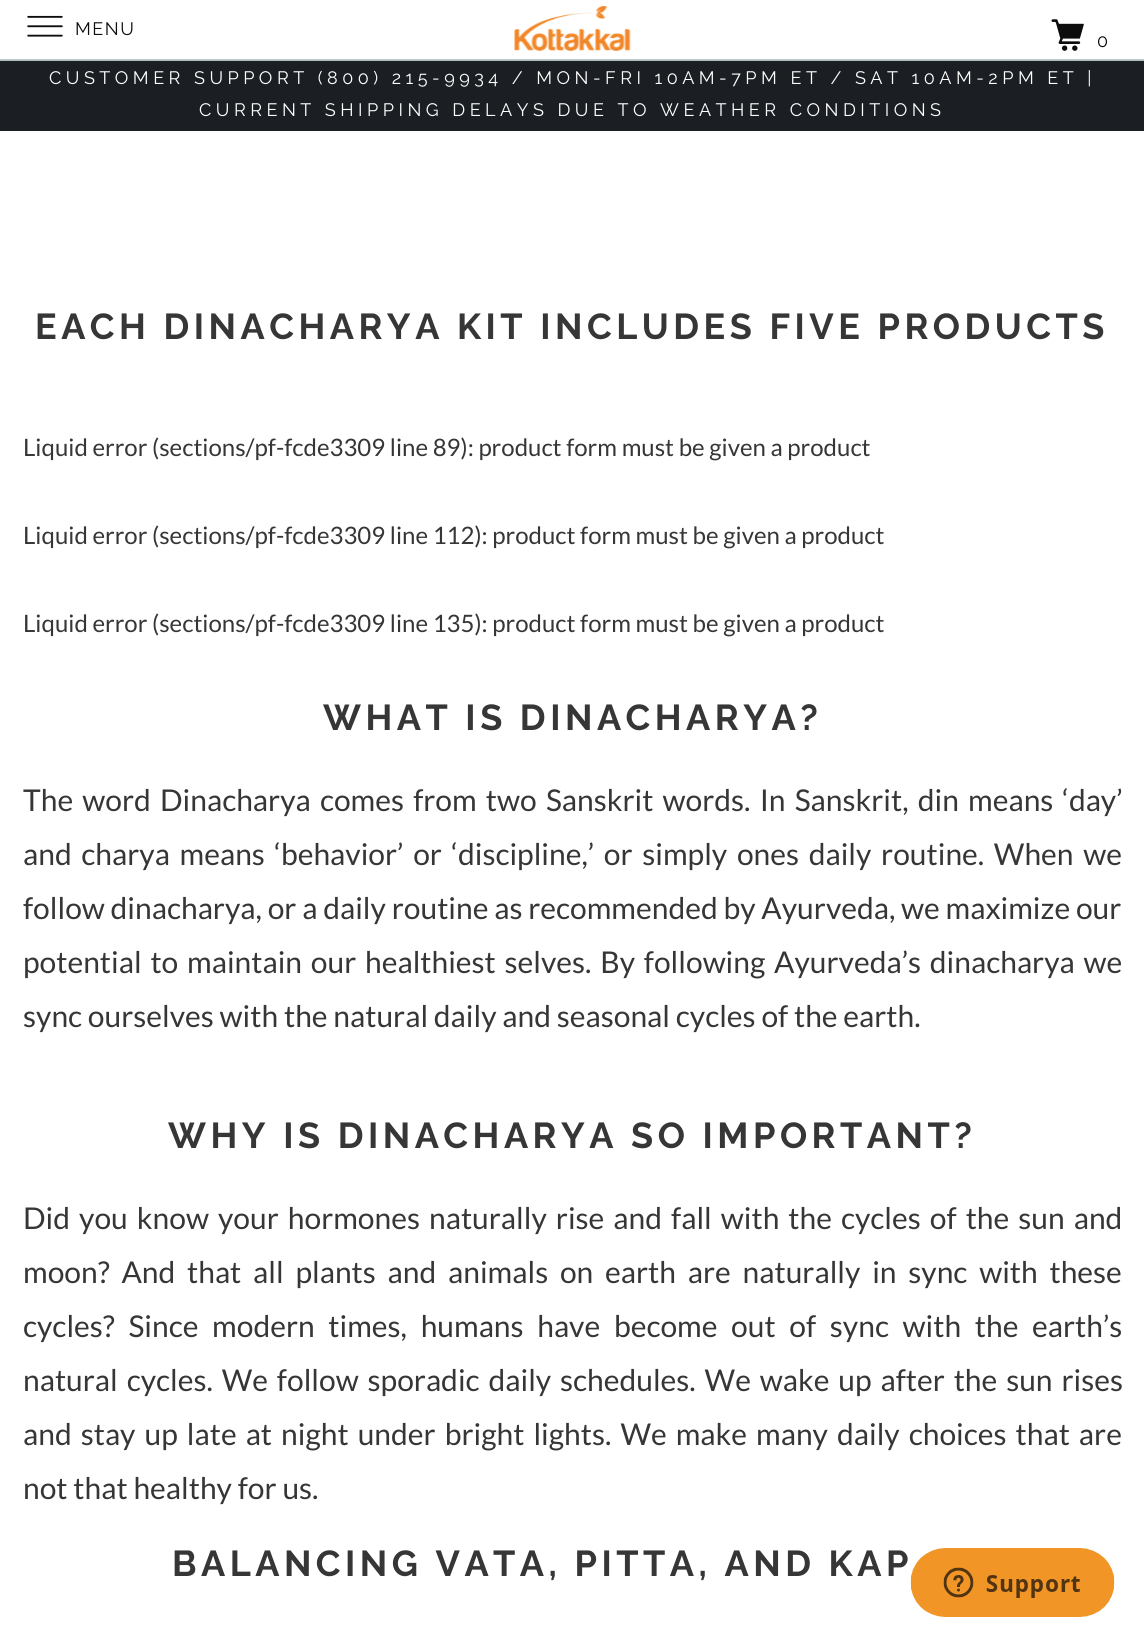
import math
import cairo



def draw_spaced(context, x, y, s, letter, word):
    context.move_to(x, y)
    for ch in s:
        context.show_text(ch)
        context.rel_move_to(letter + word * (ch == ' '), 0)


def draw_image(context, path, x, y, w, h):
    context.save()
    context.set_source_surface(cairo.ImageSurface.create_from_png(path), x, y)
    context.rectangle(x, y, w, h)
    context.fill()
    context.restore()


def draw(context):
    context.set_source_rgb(1, 1, 1)
    context.paint()
    draw_image(context, "images/1.png", 27, 15, 36, 22)
    draw_image(context, "images/2.png", 514, 6, 117, 45)
    draw_image(context, "images/3.png", 1051, 19, 33, 32)
    context.set_source_rgb(188 / 255, 201 / 255, 201 / 255)
    context.rectangle(0, 59, 1144, 1)
    context.fill()
    context.set_source_rgb(27 / 255, 31 / 255, 35 / 255)
    context.rectangle(0, 61, 1144, 70)
    context.fill()
    context.set_source_rgb(176 / 255, 190 / 255, 190 / 255)
    context.rectangle(0, 60, 1144, 1)
    context.fill()
    draw_image(context, "images/4.png", 910, 1548, 205, 69)
    context.select_font_face("Raleway Thin")
    context.set_font_size(18)
    context.set_source_rgb(13 / 255, 13 / 255, 13 / 255)
    draw_spaced(context, 75, 35, "MENU", 1.5, 0)
    draw_spaced(context, 1097, 47, "0", 1.5, 0)
    context.set_source_rgb(1, 1, 1)
    draw_spaced(context, 49, 84, "CUSTOMER SUPPORT (800) 215-9934 / MON-FRI 10AM-7PM ET / SAT 10AM-2PM ET |", 4.5, 0)
    draw_spaced(context, 199, 116, "CURRENT SHIPPING DELAYS DUE TO WEATHER CONDITIONS", 4.5, 0)
    context.select_font_face("Raleway", cairo.FontSlant.NORMAL, cairo.FontWeight.BOLD)
    context.set_font_size(36)
    context.set_source_rgb(54 / 255, 54 / 255, 54 / 255)
    draw_spaced(context, 35, 339, "EACH DINACHARYA KIT INCLUDES FIVE PRODUCTS", 4.5, 0)
    context.select_font_face("Lato")
    context.set_font_size(24)
    context.move_to(23, 456)
    context.show_text("Liquid error (sections/pf-fcde3309 line 89): product form must be given a product")
    context.move_to(23, 544)
    context.show_text("Liquid error (sections/pf-fcde3309 line 112): product form must be given a product")
    context.move_to(23, 632)
    context.show_text("Liquid error (sections/pf-fcde3309 line 135): product form must be given a product")
    context.select_font_face("Raleway", cairo.FontSlant.NORMAL, cairo.FontWeight.BOLD)
    context.set_font_size(36)
    draw_spaced(context, 323, 730, "WHAT IS DINACHARYA?", 4.5, 0)
    context.select_font_face("Lato")
    context.set_font_size(30)
    draw_spaced(context, 23, 811, "The word Dinacharya comes from two Sanskrit words. In Sanskrit, din means ‘day’", 0, 3.4)
    draw_spaced(context, 23, 865, "and charya means ‘behavior’ or ‘discipline,’ or simply ones daily routine. When we", 0, 3.9)
    context.move_to(23, 919)
    context.show_text("follow dinacharya, or a daily routine as recommended by Ayurveda, we maximize our")
    draw_spaced(context, 23, 973, "potential to maintain our healthiest selves. By following Ayurveda’s dinacharya we", 0, 3)
    context.move_to(23, 1027)
    context.show_text("sync ourselves with the natural daily and seasonal cycles of the earth.")
    context.select_font_face("Raleway", cairo.FontSlant.NORMAL, cairo.FontWeight.BOLD)
    context.set_font_size(36)
    draw_spaced(context, 168, 1148, "WHY IS DINACHARYA SO IMPORTANT?", 4.5, 0)
    context.select_font_face("Lato")
    context.set_font_size(30)
    draw_spaced(context, 23, 1229, "Did you know your hormones naturally rise and fall with the cycles of the sun and", 0, 3.25)
    draw_spaced(context, 23, 1283, "moon? And that all plants and animals on earth are naturally in sync with these", 0, 6)
    draw_spaced(context, 23, 1337, "cycles? Since modern times, humans have become out of sync with the earth’s", 0, 7.9)
    draw_spaced(context, 23, 1391, "natural cycles. We follow sporadic daily schedules. We wake up after the sun rises", 0, 3.1)
    draw_spaced(context, 23, 1445, "and stay up late at night under bright lights. We make many daily choices that are", 0, 3.25)
    context.move_to(23, 1499)
    context.show_text("not that healthy for us.")
    context.select_font_face("Raleway", cairo.FontSlant.NORMAL, cairo.FontWeight.BOLD)
    context.set_font_size(36)
    draw_spaced(context, 172, 1576, "BALANCING VATA, PITTA, AND KAP", 4.5, 0)


surface = cairo.ImageSurface(cairo.Format.RGB24, 1144, 1637)
context = cairo.Context(surface)
options = cairo.FontOptions()
options.set_hint_metrics(cairo.HintMetrics.OFF)
options.set_hint_style(cairo.HintStyle.NONE)
context.set_font_options(options)
context.set_miter_limit(4)
draw(context)
surface.write_to_png("out.png")
